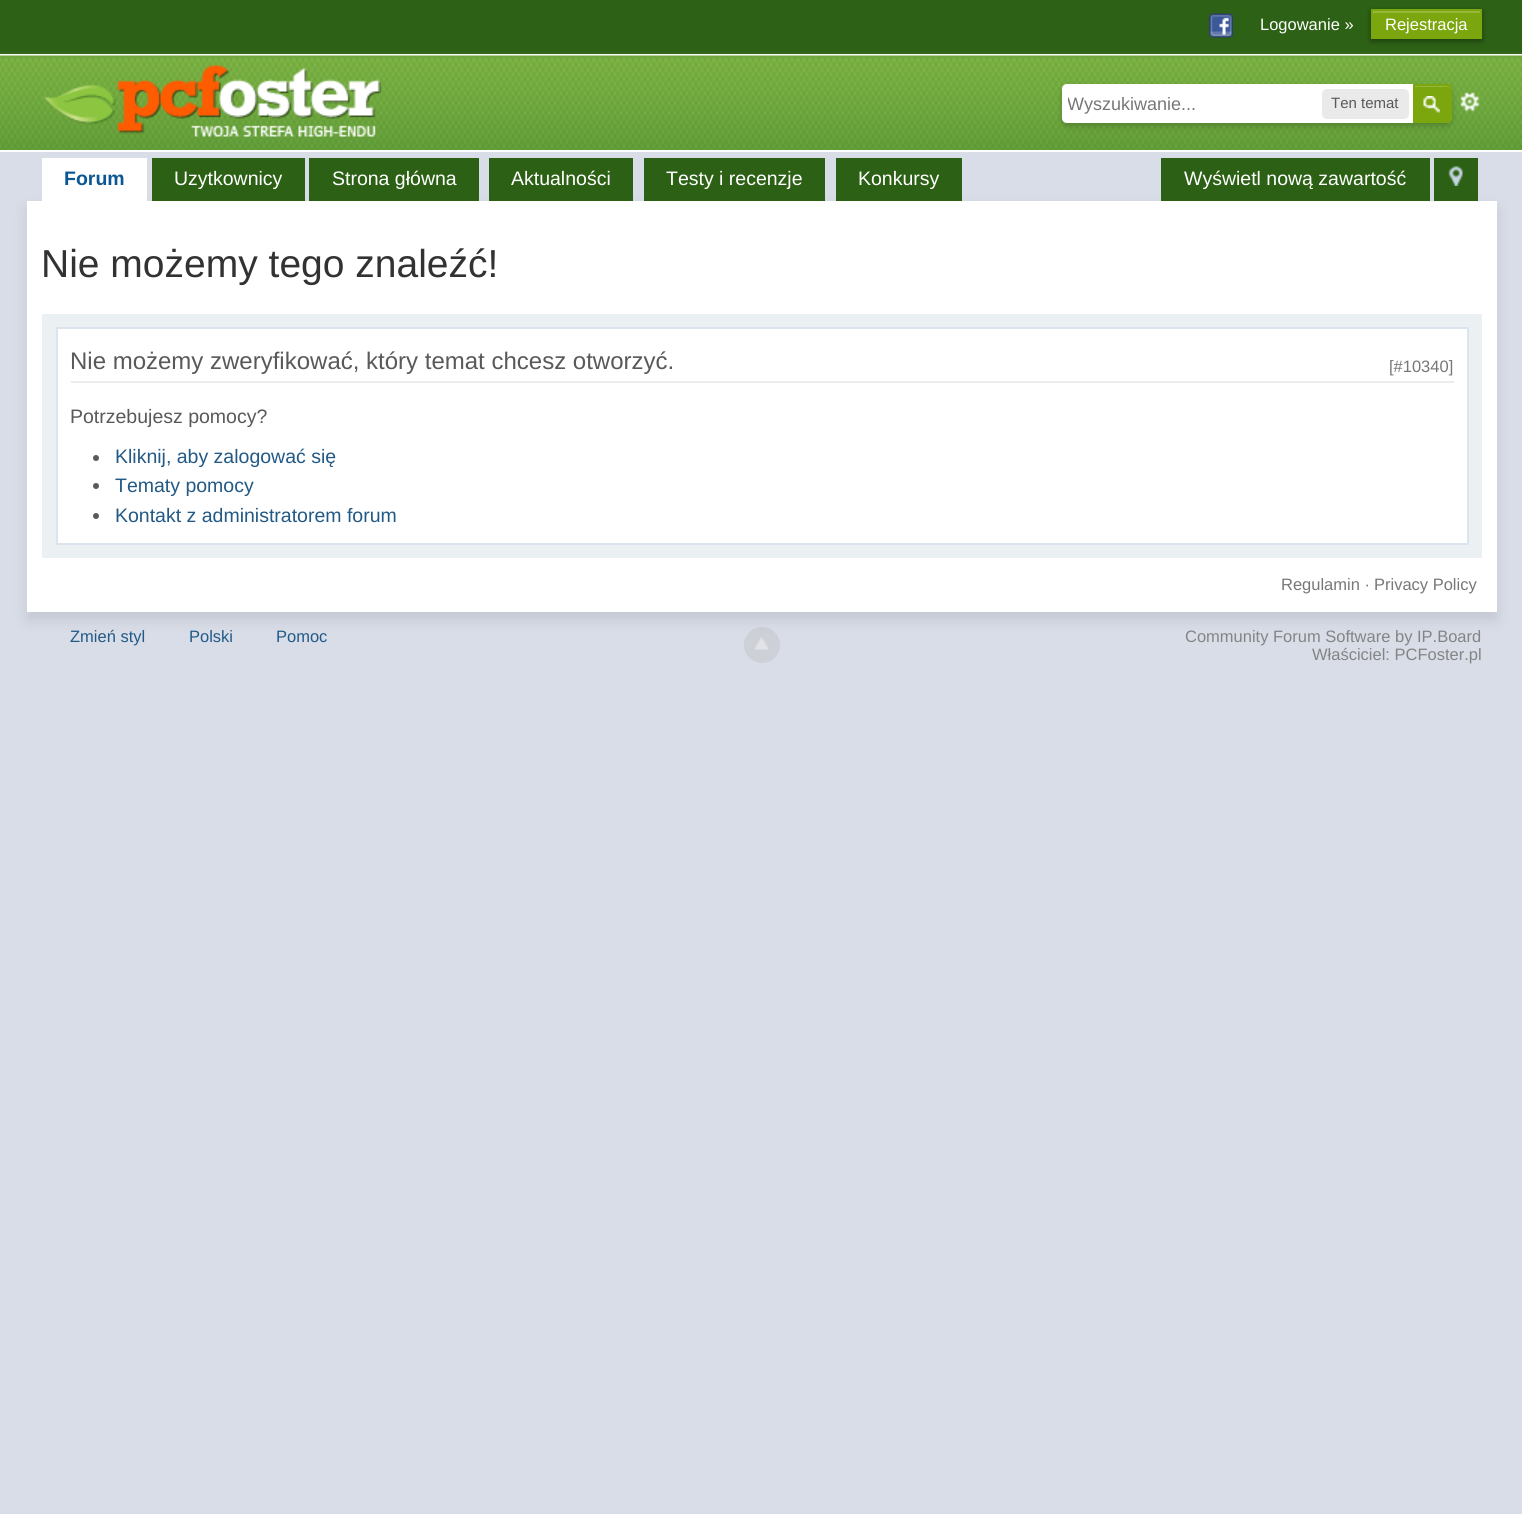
import math
import cairo



def rounded_rect(context, x, y, w, h, r):
    context.new_sub_path()
    for i, (u, v) in enumerate([(x + w - r, y + h - r), (x + r, y + h - r), (x + r, y + r), (x + w - r, y + r)]):
        context.arc(u, v, r, i * math.pi / 2, (i + 1) * math.pi / 2)
    context.close_path()


def draw_shadow(context, x, y, w, h, r, blur, alpha):
    context.push_group_with_content(cairo.Content.ALPHA)
    context.set_operator(cairo.Operator.SOURCE)
    for i in range(15, -16, -2):
        e = blur * i / 6
        if min(w, h) + 2 * e > 0:
            context.set_source_rgba(0, 0, 0, alpha * math.erfc((i - 1) / 8.5) / 2)
            rounded_rect(context, x - e, y - e, w + 2 * e, h + 2 * e, max(0, min(r + e + blur * .6, min(w, h) / 2 + e)))
            context.fill()
    context.mask(context.pop_group())


def draw_image(context, path, x, y, w, h):
    context.save()
    context.set_source_surface(cairo.ImageSurface.create_from_png(path), x, y)
    context.rectangle(x, y, w, h)
    context.fill()
    context.restore()


def draw(context):
    context.set_source_rgb(216 / 255, 221 / 255, 232 / 255)
    context.paint()
    context.set_source_rgb(45 / 255, 98 / 255, 22 / 255)
    context.rectangle(0, 0, 1522, 52)
    context.fill()
    context.set_source_rgb(52 / 255, 103 / 255, 30 / 255)
    context.rectangle(0, 52, 1522, 2)
    context.fill()
    draw_image(context, "images/1.png", 1209, 13, 24, 25)
    context.set_source_rgb(0, 0, 0)
    draw_shadow(context, 1371, 11, 111, 30, 0, 3, 0.4)
    context.set_source_rgb(123 / 255, 166 / 255, 13 / 255)
    context.rectangle(1373, 13, 107, 24)
    context.fill()
    context.set_source_rgb(149 / 255, 184 / 255, 61 / 255)
    context.rectangle(1373, 11, 108, 2)
    context.fill()
    context.rectangle(1372, 10, 109, 28)
    context.set_source_rgb(123 / 255, 166 / 255, 13 / 255)
    context.stroke()
    draw_image(context, "images/2.png", 0, 54, 1522, 96)
    context.set_source_rgb(1, 1, 1)
    context.rectangle(0, 150, 1522, 2)
    context.fill()
    draw_image(context, "images/3.png", 43, 64, 339, 73)
    draw_image(context, "images/5.png", 1460, 92, 20, 20)
    context.set_source_rgb(0, 0, 0)
    draw_shadow(context, 1062, 87, 390, 39, 6, 3, 0.2)
    context.set_source_rgb(1, 1, 1)
    context.new_path()
    context.move_to(1067, 84)
    context.line_to(1446, 84)
    context.curve_to(1449.5, 84, 1452, 86.5, 1452, 90)
    context.line_to(1452, 117)
    context.curve_to(1452, 120.5, 1449.5, 123, 1446, 123)
    context.line_to(1067, 123)
    context.curve_to(1064, 123, 1062, 121, 1062, 118)
    context.line_to(1062, 89)
    context.curve_to(1062, 86, 1064, 84, 1067, 84)
    context.close_path()
    context.fill()
    context.set_source_rgb(234 / 255, 234 / 255, 234 / 255)
    rounded_rect(context, 1322, 89, 87, 30, 5)
    context.fill()
    context.set_source_rgb(123 / 255, 166 / 255, 13 / 255)
    context.new_path()
    context.move_to(1413, 84)
    context.line_to(1447, 84)
    context.curve_to(1450, 84, 1452, 86, 1452, 89)
    context.line_to(1452, 118)
    context.curve_to(1452, 121, 1450, 123, 1447, 123)
    context.line_to(1413, 123)
    context.close_path()
    context.fill()
    draw_image(context, "images/4.png", 1423, 96, 17, 17)
    context.set_source_rgb(149 / 255, 184 / 255, 61 / 255)
    context.new_path()
    context.move_to(1415, 86)
    context.line_to(1415, 87)
    context.line_to(1442.5, 87)
    context.curve_to(1445.5, 87, 1450, 85.5, 1450, 90)
    context.line_to(1450, 121.5)
    context.curve_to(1450.5, 121, 1451, 120, 1451, 119)
    context.line_to(1451, 89)
    context.curve_to(1451, 87.5, 1449.5, 86, 1448, 86)
    context.close_path()
    context.fill()
    context.new_path()
    context.move_to(1414, 85)
    context.line_to(1447, 85)
    context.curve_to(1449, 85, 1451, 87, 1451, 89)
    context.line_to(1451, 118)
    context.curve_to(1451, 120, 1449, 122, 1447, 122)
    context.line_to(1414, 122)
    context.close_path()
    context.set_source_rgb(123 / 255, 166 / 255, 13 / 255)
    context.stroke()
    context.set_source_rgb(0, 0, 0)
    draw_shadow(context, 27, 209, 1470, 411, 0, 7, 0.1)
    context.set_source_rgb(1, 1, 1)
    context.rectangle(42, 158, 105, 43)
    context.fill()
    context.set_source_rgb(44 / 255, 97 / 255, 21 / 255)
    context.rectangle(152, 158, 153, 43)
    context.fill()
    context.rectangle(309, 158, 170, 43)
    context.fill()
    context.rectangle(489, 158, 144, 43)
    context.fill()
    context.rectangle(644, 158, 181, 43)
    context.fill()
    context.rectangle(836, 158, 126, 43)
    context.fill()
    context.rectangle(1161, 158, 269, 43)
    context.fill()
    context.rectangle(1434, 158, 44, 43)
    context.fill()
    draw_image(context, "images/6.png", 1448, 166, 15, 20)
    context.set_source_rgb(1, 1, 1)
    context.rectangle(27, 201, 1470, 411)
    context.fill()
    context.set_source_rgb(235 / 255, 240 / 255, 243 / 255)
    context.rectangle(42, 314, 1440, 244)
    context.fill()
    context.set_source_rgb(1, 1, 1)
    context.rectangle(57, 328, 1411, 216)
    context.fill_preserve()
    context.set_source_rgb(219 / 255, 228 / 255, 239 / 255)
    context.stroke()
    context.set_source_rgb(236 / 255, 236 / 255, 236 / 255)
    context.rectangle(71, 381, 1383, 2)
    context.fill()
    context.set_source_rgb(90 / 255, 90 / 255, 90 / 255)
    context.arc(96, 458, 3, 0, 2 * math.pi)
    context.fill()
    context.arc(96, 486, 3, 0, 2 * math.pi)
    context.fill()
    context.arc(96, 516, 3, 0, 2 * math.pi)
    context.fill()
    context.set_source_rgba(189 / 255, 189 / 255, 189 / 255, 0.4)
    context.arc(762, 645, 18, 0, 2 * math.pi)
    context.fill()
    draw_image(context, "images/7.png", 754, 637, 15, 13)
    context.select_font_face("Liberation Sans")
    context.set_font_size(16.5)
    context.set_source_rgb(1, 1, 1)
    context.move_to(1260, 30)
    context.show_text("Logowanie »")
    context.move_to(1385, 30)
    context.show_text("Rejestracja")
    context.save()
    context.rectangle(1068, 93, 195, 21)
    context.clip()
    context.set_font_size(18)
    context.set_source_rgb(119 / 255, 119 / 255, 119 / 255)
    context.move_to(1067, 110)
    context.show_text("Wyszukiwanie...")
    context.restore()
    context.set_font_size(15)
    context.set_source_rgb(89 / 255, 89 / 255, 89 / 255)
    context.move_to(1331, 108)
    context.show_text("Ten temat")
    context.select_font_face("Liberation Sans", cairo.FontSlant.NORMAL, cairo.FontWeight.BOLD)
    context.set_font_size(19.5)
    context.set_source_rgb(11 / 255, 87 / 255, 148 / 255)
    context.move_to(64, 185)
    context.show_text("Forum")
    context.select_font_face("Liberation Sans")
    context.set_source_rgb(1, 1, 1)
    context.move_to(174, 185)
    context.show_text("Uzytkownicy")
    context.move_to(332, 185)
    context.show_text("Strona główna")
    context.move_to(511, 185)
    context.show_text("Aktualności")
    context.move_to(666, 185)
    context.show_text("Testy i recenzje")
    context.move_to(858, 185)
    context.show_text("Konkursy")
    context.move_to(1184, 185)
    context.show_text("Wyświetl nową zawartość")
    context.set_font_size(39)
    context.set_source_rgb(50 / 255, 50 / 255, 50 / 255)
    context.move_to(41, 277)
    context.show_text("Nie możemy tego znaleźć!")
    context.set_font_size(24)
    context.set_source_rgb(89 / 255, 89 / 255, 89 / 255)
    context.move_to(70, 369)
    context.show_text("Nie możemy zweryfikować, który temat chcesz otworzyć.")
    context.set_font_size(16.5)
    context.set_source_rgb(119 / 255, 119 / 255, 119 / 255)
    context.move_to(1389, 372)
    context.show_text("[#10340]")
    context.set_font_size(19.5)
    context.set_source_rgb(89 / 255, 89 / 255, 89 / 255)
    context.move_to(70, 423)
    context.show_text("Potrzebujesz pomocy?")
    context.set_source_rgb(34 / 255, 89 / 255, 133 / 255)
    context.move_to(115, 463)
    context.show_text("Kliknij, aby zalogować się")
    context.move_to(115, 492)
    context.show_text("Tematy pomocy")
    context.move_to(115, 522)
    context.show_text("Kontakt z administratorem forum")
    context.set_font_size(16.5)
    context.set_source_rgb(119 / 255, 119 / 255, 119 / 255)
    context.move_to(1281, 590)
    context.show_text("Regulamin ·")
    context.move_to(1374, 590)
    context.show_text("Privacy Policy")
    context.set_source_rgb(34 / 255, 89 / 255, 133 / 255)
    context.move_to(70, 642)
    context.show_text("Zmień styl")
    context.move_to(189, 642)
    context.show_text("Polski")
    context.move_to(276, 642)
    context.show_text("Pomoc")
    context.set_source_rgb(132 / 255, 132 / 255, 132 / 255)
    context.move_to(1185, 642)
    context.show_text("Community Forum Software by IP.Board")
    context.move_to(1312, 660)
    context.show_text("Właściciel: PCFoster.pl")


surface = cairo.ImageSurface(cairo.Format.RGB24, 1522, 1514)
context = cairo.Context(surface)
options = cairo.FontOptions()
options.set_hint_metrics(cairo.HintMetrics.OFF)
options.set_hint_style(cairo.HintStyle.NONE)
context.set_font_options(options)
context.set_miter_limit(4)
draw(context)
surface.write_to_png("out.png")
